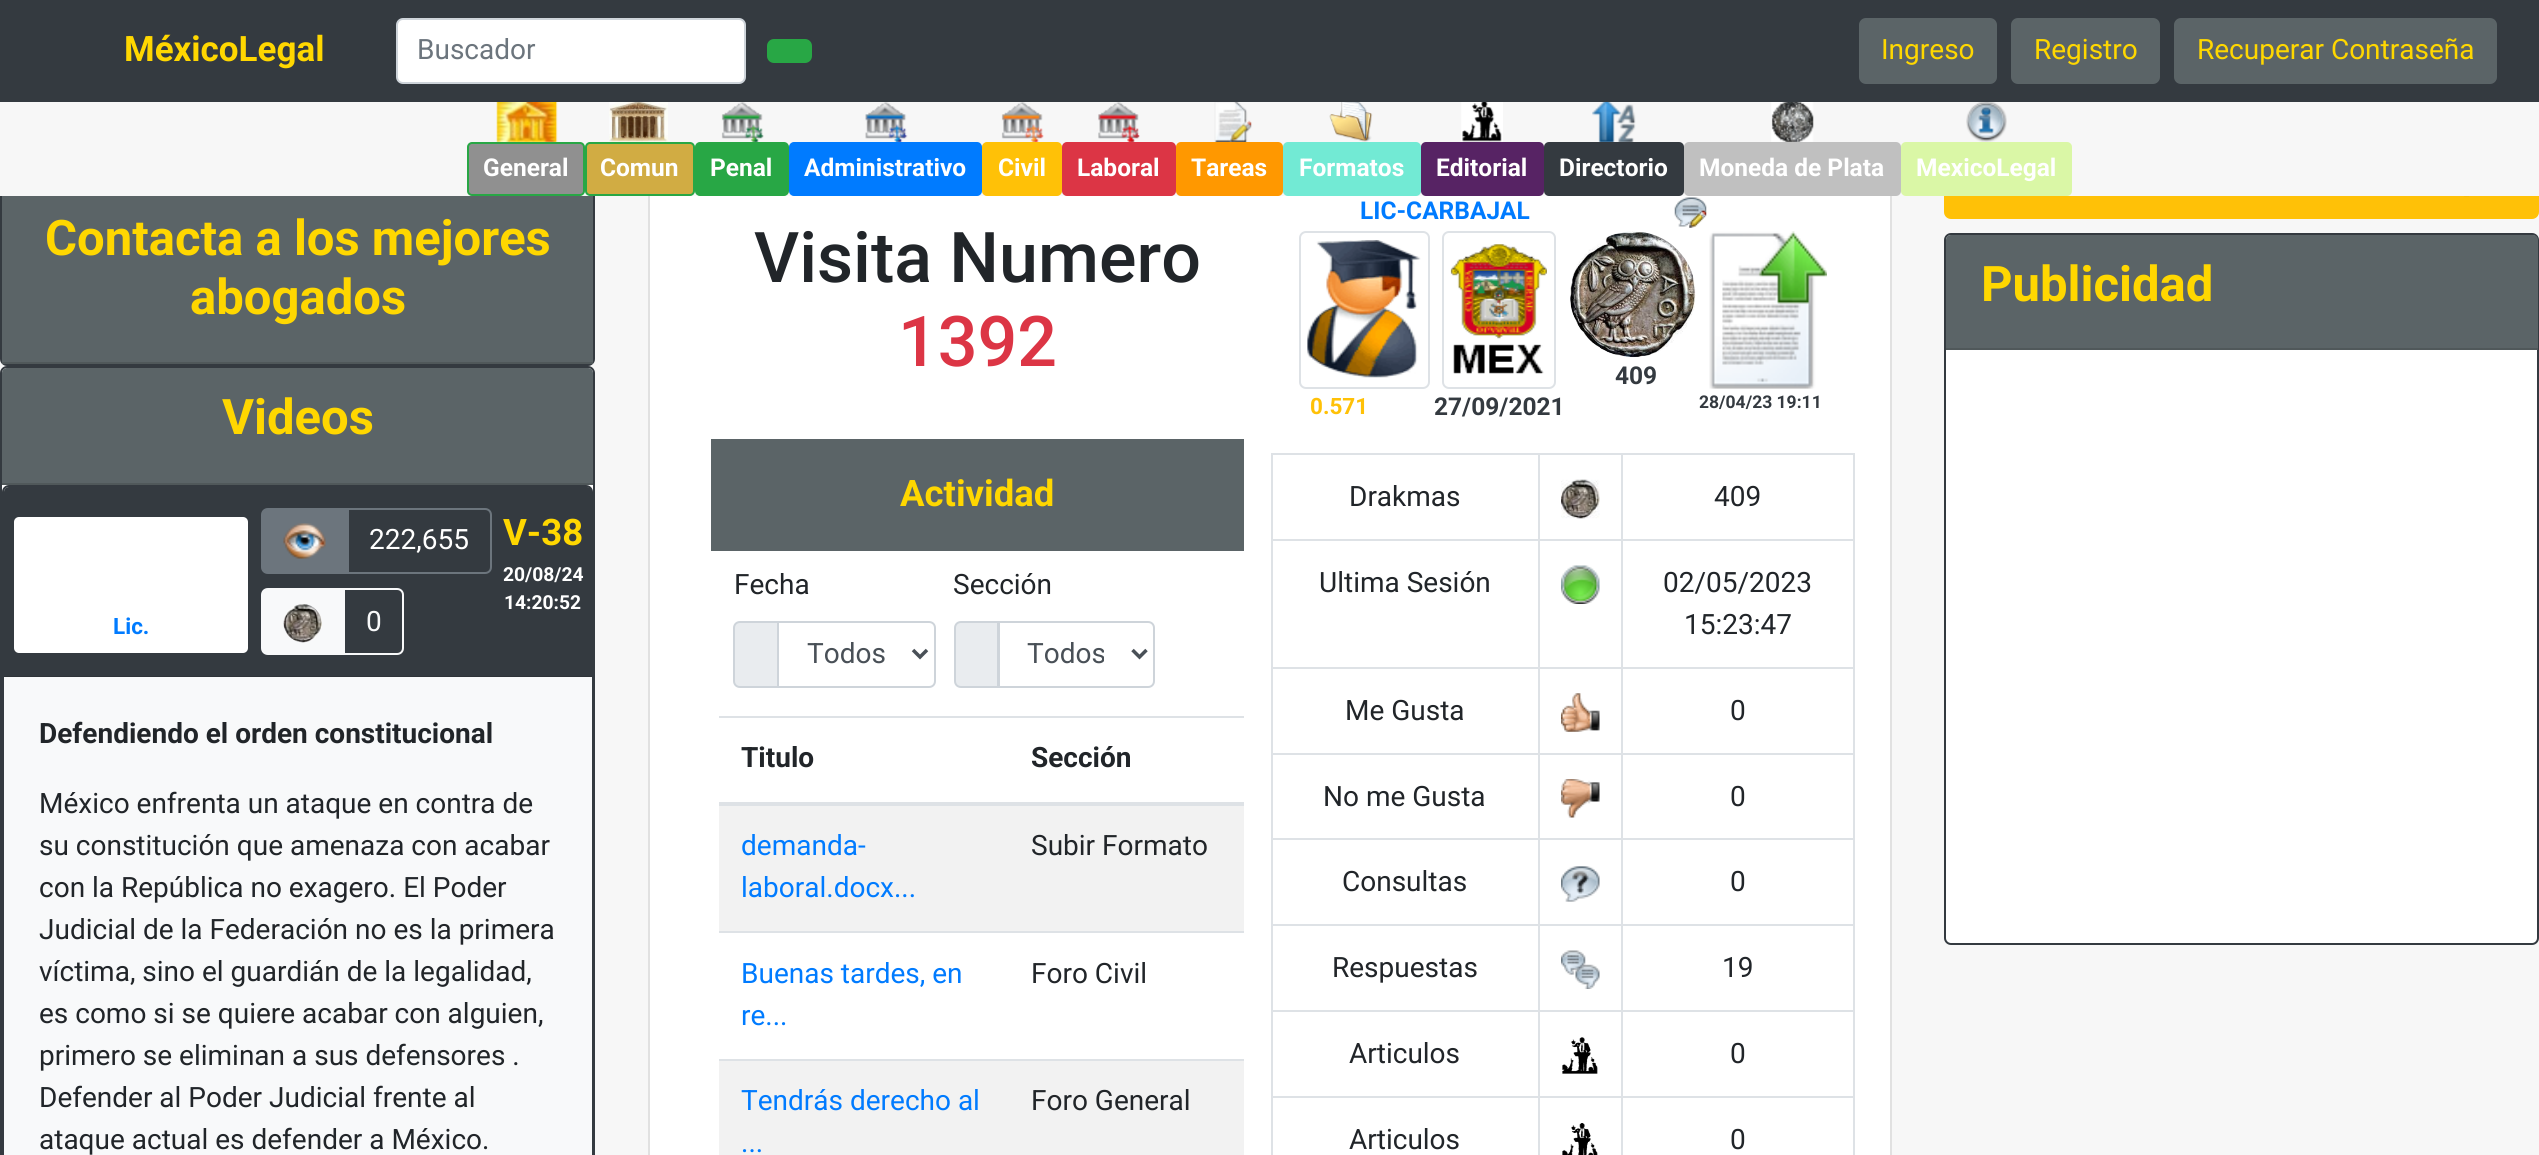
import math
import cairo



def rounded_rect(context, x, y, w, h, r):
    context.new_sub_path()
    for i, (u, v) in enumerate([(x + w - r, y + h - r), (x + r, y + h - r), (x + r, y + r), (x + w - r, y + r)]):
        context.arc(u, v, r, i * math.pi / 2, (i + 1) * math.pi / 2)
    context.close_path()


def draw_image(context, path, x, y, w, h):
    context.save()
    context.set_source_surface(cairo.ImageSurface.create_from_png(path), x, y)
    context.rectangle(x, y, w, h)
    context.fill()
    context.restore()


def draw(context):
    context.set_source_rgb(247 / 255, 247 / 255, 247 / 255)
    context.paint()
    context.set_source_rgb(1, 1, 1)
    context.rectangle(648, 196, 1244, 959)
    context.fill()
    context.rectangle(649, 38, 1242, 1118)
    context.set_source_rgba(0, 0, 0, 0.12)
    context.stroke()
    context.set_source_rgb(1, 193 / 255, 7 / 255)
    rounded_rect(context, 1945, 38, 593, 180, 6)
    context.fill_preserve()
    context.stroke()
    context.set_source_rgb(52 / 255, 58 / 255, 64 / 255)
    context.rectangle(0, 0, 2539, 102)
    context.fill()
    context.set_source_rgb(1, 1, 1)
    rounded_rect(context, 397, 19, 348, 64, 6)
    context.fill_preserve()
    context.set_source_rgb(206 / 255, 212 / 255, 218 / 255)
    context.stroke()
    context.set_source_rgb(40 / 255, 167 / 255, 69 / 255)
    rounded_rect(context, 768, 40, 43, 22, 6)
    context.fill_preserve()
    context.stroke()
    context.set_source_rgb(91 / 255, 100 / 255, 103 / 255)
    rounded_rect(context, 1859, 18, 138, 66, 7)
    context.fill()
    rounded_rect(context, 2011, 18, 149, 66, 7)
    context.fill()
    rounded_rect(context, 2174, 18, 323, 66, 7)
    context.fill()
    rounded_rect(context, 1, 188, 593, 177, 6)
    context.set_source_rgb(52 / 255, 58 / 255, 64 / 255)
    context.stroke()
    context.set_source_rgb(247 / 255, 247 / 255, 247 / 255)
    context.rectangle(0, 102, 2539, 94)
    context.fill()
    draw_image(context, "images/1.png", 496, 102, 62, 40)
    context.set_source_rgb(144 / 255, 144 / 255, 144 / 255)
    rounded_rect(context, 468, 143, 116, 52, 4)
    context.fill_preserve()
    context.set_source_rgb(40 / 255, 167 / 255, 69 / 255)
    context.stroke()
    draw_image(context, "images/2.png", 609, 102, 59, 40)
    context.set_source_rgb(209 / 255, 172 / 255, 67 / 255)
    rounded_rect(context, 586, 143, 108, 52, 4)
    context.fill_preserve()
    context.set_source_rgb(40 / 255, 167 / 255, 69 / 255)
    context.stroke()
    draw_image(context, "images/3.png", 721, 102, 43, 40)
    rounded_rect(context, 696, 143, 92, 52, 4)
    context.fill_preserve()
    context.stroke()
    draw_image(context, "images/4.png", 865, 102, 43, 40)
    context.set_source_rgb(0, 123 / 255, 1)
    rounded_rect(context, 790, 143, 191, 52, 4)
    context.fill_preserve()
    context.stroke()
    draw_image(context, "images/5.png", 1001, 102, 43, 40)
    context.set_source_rgb(1, 193 / 255, 7 / 255)
    rounded_rect(context, 983, 143, 78, 52, 4)
    context.fill_preserve()
    context.stroke()
    draw_image(context, "images/6.png", 1098, 102, 42, 40)
    context.set_source_rgb(220 / 255, 53 / 255, 69 / 255)
    rounded_rect(context, 1063, 143, 112, 52, 4)
    context.fill_preserve()
    context.stroke()
    draw_image(context, "images/7.png", 1214, 102, 38, 40)
    context.set_source_rgb(1, 152 / 255, 0)
    rounded_rect(context, 1176, 142, 107, 54, 5)
    context.fill()
    draw_image(context, "images/8.png", 1329, 102, 44, 40)
    context.set_source_rgb(114 / 255, 234 / 255, 212 / 255)
    rounded_rect(context, 1283, 142, 138, 54, 5)
    context.fill()
    draw_image(context, "images/9.png", 1461, 102, 42, 40)
    context.set_source_rgb(87 / 255, 35 / 255, 100 / 255)
    rounded_rect(context, 1421, 142, 123, 54, 5)
    context.fill()
    draw_image(context, "images/10.png", 1592, 102, 44, 40)
    context.set_source_rgb(52 / 255, 58 / 255, 64 / 255)
    rounded_rect(context, 1544, 142, 140, 54, 5)
    context.fill()
    draw_image(context, "images/11.png", 1771, 102, 43, 40)
    context.set_source_rgb(192 / 255, 192 / 255, 192 / 255)
    rounded_rect(context, 1684, 142, 217, 54, 5)
    context.fill()
    draw_image(context, "images/12.png", 1966, 102, 41, 40)
    context.set_source_rgb(218 / 255, 247 / 255, 166 / 255)
    rounded_rect(context, 1901, 142, 171, 54, 5)
    context.fill()
    context.set_source_rgb(91 / 255, 100 / 255, 103 / 255)
    context.rectangle(2, 196, 591, 166)
    context.fill()
    context.set_source_rgb(80 / 255, 88 / 255, 90 / 255)
    context.rectangle(2, 362, 591, 2)
    context.fill()
    context.set_source_rgb(1, 1, 1)
    rounded_rect(context, 1, 367, 593, 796, 6)
    context.fill_preserve()
    context.set_source_rgb(52 / 255, 58 / 255, 64 / 255)
    context.stroke()
    context.set_source_rgb(91 / 255, 100 / 255, 103 / 255)
    context.new_path()
    context.move_to(7, 368)
    context.line_to(588, 368)
    context.curve_to(591, 368, 593, 370, 593, 373)
    context.line_to(593, 485)
    context.line_to(2, 485)
    context.line_to(2, 373)
    context.curve_to(2, 370, 4, 368, 7, 368)
    context.close_path()
    context.fill()
    context.set_source_rgb(80 / 255, 88 / 255, 90 / 255)
    context.rectangle(2, 483, 591, 2)
    context.fill()
    rounded_rect(context, 3, 486, 589, 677, 6)
    context.set_source_rgb(52 / 255, 58 / 255, 64 / 255)
    context.stroke()
    context.new_path()
    context.move_to(9, 487)
    context.line_to(587, 487)
    context.curve_to(590, 487, 592, 489, 592, 492)
    context.line_to(592, 677)
    context.line_to(4, 677)
    context.line_to(4, 492)
    context.curve_to(4, 489, 6, 487, 9, 487)
    context.close_path()
    context.fill()
    context.set_source_rgba(0, 0, 0, 0.12)
    context.rectangle(4, 676, 588, 1)
    context.fill()
    context.set_source_rgb(1, 1, 1)
    rounded_rect(context, 13, 516, 236, 138, 6)
    context.fill_preserve()
    context.set_source_rgb(52 / 255, 58 / 255, 64 / 255)
    context.stroke()
    context.new_path()
    context.move_to(348, 509)
    context.line_to(485, 509)
    context.curve_to(488.5, 509, 491, 511.5, 491, 515)
    context.line_to(491, 567)
    context.curve_to(491, 570.5, 488.5, 573, 485, 573)
    context.line_to(348, 573)
    context.close_path()
    context.set_source_rgb(108 / 255, 117 / 255, 125 / 255)
    context.stroke()
    context.new_path()
    context.move_to(268, 509)
    context.line_to(347, 509)
    context.line_to(347, 573)
    context.line_to(268, 573)
    context.curve_to(264.5, 573, 262, 570.5, 262, 567)
    context.line_to(262, 515)
    context.curve_to(262, 511.5, 264.5, 509, 268, 509)
    context.close_path()
    context.fill_preserve()
    context.stroke()
    draw_image(context, "images/13.png", 283, 523, 43, 36)
    context.new_path()
    context.move_to(344, 589)
    context.line_to(397, 589)
    context.curve_to(400.5, 589, 403, 591.5, 403, 595)
    context.line_to(403, 648)
    context.curve_to(403, 651.5, 400.5, 654, 397, 654)
    context.line_to(344, 654)
    context.close_path()
    context.set_source_rgb(248 / 255, 249 / 255, 250 / 255)
    context.stroke()
    context.new_path()
    context.move_to(268, 589)
    context.line_to(344, 589)
    context.line_to(344, 654)
    context.line_to(268, 654)
    context.curve_to(264.5, 654, 262, 651.5, 262, 648)
    context.line_to(262, 595)
    context.curve_to(262, 591.5, 264.5, 589, 268, 589)
    context.close_path()
    context.fill_preserve()
    context.stroke()
    draw_image(context, "images/14.png", 283, 604, 39, 39)
    context.rectangle(4, 677, 588, 478)
    context.fill()
    draw_image(context, "images/15.png", 1674, 197, 33, 31)
    draw_image(context, "images/16.png", 1570, 231, 126, 127)
    rounded_rect(context, 1300, 232, 129, 156, 6)
    context.set_source_rgb(222 / 255, 226 / 255, 230 / 255)
    context.stroke()
    draw_image(context, "images/17.png", 1307, 240, 114, 138)
    rounded_rect(context, 1443, 232, 112, 156, 6)
    context.stroke()
    draw_image(context, "images/18.png", 1450, 244, 97, 130)
    draw_image(context, "images/19.png", 1709, 231, 118, 158)
    context.set_source_rgb(91 / 255, 100 / 255, 103 / 255)
    context.rectangle(711, 439, 533, 112)
    context.fill()
    context.set_source_rgb(233 / 255, 236 / 255, 239 / 255)
    context.new_path()
    context.move_to(740, 622)
    context.line_to(778, 622)
    context.line_to(778, 687)
    context.line_to(740, 687)
    context.curve_to(736.5, 687, 734, 684.5, 734, 681)
    context.line_to(734, 628)
    context.curve_to(734, 624.5, 736.5, 622, 740, 622)
    context.close_path()
    context.fill_preserve()
    context.set_source_rgb(206 / 255, 212 / 255, 218 / 255)
    context.stroke()
    context.new_path()
    context.move_to(778, 622)
    context.line_to(929, 622)
    context.curve_to(932.5, 622, 935, 624.5, 935, 628)
    context.line_to(935, 681)
    context.curve_to(935, 684.5, 932.5, 687, 929, 687)
    context.line_to(778, 687)
    context.close_path()
    context.stroke()
    context.new_path()
    context.move_to(913, 650)
    context.line_to(920, 657)
    context.line_to(927, 650)
    context.set_source_rgb(73 / 255, 80 / 255, 87 / 255)
    context.set_line_width(3.5)
    context.stroke()
    context.set_source_rgb(233 / 255, 236 / 255, 239 / 255)
    context.new_path()
    context.move_to(961, 622)
    context.line_to(998, 622)
    context.line_to(998, 687)
    context.line_to(961, 687)
    context.curve_to(957.5, 687, 955, 684.5, 955, 681)
    context.line_to(955, 628)
    context.curve_to(955, 624.5, 957.5, 622, 961, 622)
    context.close_path()
    context.fill_preserve()
    context.set_source_rgb(206 / 255, 212 / 255, 218 / 255)
    context.set_line_width(2)
    context.stroke()
    context.new_path()
    context.move_to(999, 622)
    context.line_to(1148, 622)
    context.curve_to(1151.5, 622, 1154, 624.5, 1154, 628)
    context.line_to(1154, 681)
    context.curve_to(1154, 684.5, 1151.5, 687, 1148, 687)
    context.line_to(999, 687)
    context.close_path()
    context.stroke()
    context.new_path()
    context.move_to(1132.5, 650)
    context.line_to(1139.5, 657)
    context.line_to(1146.5, 650)
    context.set_source_rgb(73 / 255, 80 / 255, 87 / 255)
    context.set_line_width(3.5)
    context.stroke()
    context.set_source_rgb(222 / 255, 226 / 255, 230 / 255)
    context.rectangle(719, 716, 525, 2)
    context.fill()
    context.rectangle(719, 802, 525, 4)
    context.fill()
    context.set_source_rgb(242 / 255, 242 / 255, 242 / 255)
    context.rectangle(719, 806, 525, 125)
    context.fill()
    context.set_source_rgb(222 / 255, 226 / 255, 230 / 255)
    context.rectangle(719, 931, 525, 2)
    context.fill()
    context.set_source_rgb(242 / 255, 242 / 255, 242 / 255)
    context.rectangle(719, 1061, 525, 94)
    context.fill()
    context.set_source_rgb(222 / 255, 226 / 255, 230 / 255)
    context.rectangle(719, 1059, 525, 2)
    context.fill()
    context.rectangle(1271, 453, 584, 2)
    context.fill()
    context.rectangle(1853, 453, 2, 702)
    context.fill()
    context.rectangle(1271, 453, 2, 702)
    context.fill()
    context.rectangle(1621, 539, 234, 2)
    context.fill()
    context.rectangle(1621, 667, 234, 2)
    context.fill()
    context.rectangle(1621, 753, 234, 2)
    context.fill()
    context.rectangle(1621, 838, 234, 2)
    context.fill()
    context.rectangle(1621, 924, 234, 2)
    context.fill()
    context.rectangle(1621, 1010, 234, 2)
    context.fill()
    context.rectangle(1621, 1096, 234, 2)
    context.fill()
    context.rectangle(1621, 1096, 2, 59)
    context.fill()
    context.rectangle(1538, 1096, 84, 2)
    context.fill()
    context.rectangle(1621, 1010, 2, 87)
    context.fill()
    context.rectangle(1538, 1010, 84, 2)
    context.fill()
    context.rectangle(1621, 924, 2, 88)
    context.fill()
    context.rectangle(1538, 924, 84, 2)
    context.fill()
    context.rectangle(1621, 838, 2, 88)
    context.fill()
    context.rectangle(1538, 838, 84, 2)
    context.fill()
    context.rectangle(1621, 753, 2, 87)
    context.fill()
    context.rectangle(1538, 753, 84, 2)
    context.fill()
    context.rectangle(1621, 667, 2, 87)
    context.fill()
    context.rectangle(1538, 667, 84, 2)
    context.fill()
    context.rectangle(1621, 539, 2, 130)
    context.fill()
    context.rectangle(1538, 539, 84, 2)
    context.fill()
    context.rectangle(1538, 1096, 2, 59)
    context.fill()
    context.rectangle(1271, 1096, 269, 2)
    context.fill()
    context.rectangle(1538, 1010, 2, 87)
    context.fill()
    context.rectangle(1271, 1010, 269, 2)
    context.fill()
    context.rectangle(1538, 924, 2, 88)
    context.fill()
    context.rectangle(1271, 924, 269, 2)
    context.fill()
    context.rectangle(1538, 838, 2, 88)
    context.fill()
    context.rectangle(1271, 838, 269, 2)
    context.fill()
    context.rectangle(1538, 753, 2, 87)
    context.fill()
    context.rectangle(1271, 753, 269, 2)
    context.fill()
    context.rectangle(1538, 667, 2, 87)
    context.fill()
    context.rectangle(1271, 667, 269, 2)
    context.fill()
    context.rectangle(1538, 539, 2, 130)
    context.fill()
    context.rectangle(1271, 539, 269, 2)
    context.fill()
    context.rectangle(1538, 453, 2, 88)
    context.fill()
    draw_image(context, "images/20.png", 1561, 479, 39, 40)
    context.rectangle(1621, 453, 2, 88)
    context.fill()
    draw_image(context, "images/21.png", 1561, 565, 39, 39)
    draw_image(context, "images/22.png", 1561, 693, 39, 39)
    draw_image(context, "images/23.png", 1561, 779, 39, 39)
    draw_image(context, "images/24.png", 1561, 866, 39, 36)
    draw_image(context, "images/25.png", 1561, 950, 39, 39)
    draw_image(context, "images/26.png", 1562, 1037, 36, 37)
    draw_image(context, "images/27.png", 1562, 1123, 36, 32)
    draw_image(context, "images/28.png", 2464, 196, 5, 1)
    context.set_source_rgb(1, 1, 1)
    rounded_rect(context, 1945, 234, 593, 710, 6)
    context.fill_preserve()
    context.set_source_rgb(52 / 255, 58 / 255, 64 / 255)
    context.set_line_width(2)
    context.stroke()
    context.set_source_rgb(91 / 255, 100 / 255, 103 / 255)
    context.new_path()
    context.move_to(1951, 235)
    context.line_to(2533, 235)
    context.curve_to(2536, 235, 2538, 237, 2538, 240)
    context.line_to(2538, 350)
    context.line_to(1946, 350)
    context.line_to(1946, 240)
    context.curve_to(1946, 237, 1948, 235, 1951, 235)
    context.close_path()
    context.fill()
    context.set_source_rgb(80 / 255, 88 / 255, 90 / 255)
    context.rectangle(1946, 348, 592, 2)
    context.fill()
    context.select_font_face("Roboto", cairo.FontSlant.NORMAL, cairo.FontWeight.BOLD)
    context.set_font_size(35)
    context.set_source_rgb(1, 215 / 255, 0)
    context.move_to(124, 61)
    context.show_text("MéxicoLegal")
    context.select_font_face("Roboto")
    context.set_font_size(28)
    context.set_source_rgb(108 / 255, 117 / 255, 125 / 255)
    context.move_to(417, 59)
    context.show_text("Buscador")
    context.set_source_rgb(1, 215 / 255, 0)
    context.move_to(1881, 59)
    context.show_text("Ingreso")
    context.move_to(2034, 59)
    context.show_text("Registro")
    context.move_to(2197, 59)
    context.show_text("Recuperar Contraseña")
    context.select_font_face("Roboto", cairo.FontSlant.NORMAL, cairo.FontWeight.BOLD)
    context.set_font_size(24.5)
    context.set_source_rgb(1, 1, 1)
    context.move_to(483, 176)
    context.show_text("General")
    context.move_to(600, 176)
    context.show_text("Comun")
    context.move_to(710, 176)
    context.show_text("Penal")
    context.move_to(804, 176)
    context.show_text("Administrativo")
    context.move_to(998, 176)
    context.show_text("Civil")
    context.move_to(1077, 176)
    context.show_text("Laboral")
    context.move_to(1191, 176)
    context.show_text("Tareas")
    context.move_to(1299, 176)
    context.show_text("Formatos")
    context.move_to(1436, 176)
    context.show_text("Editorial")
    context.move_to(1559, 176)
    context.show_text("Directorio")
    context.move_to(1699, 176)
    context.show_text("Moneda de Plata")
    context.move_to(1916, 176)
    context.show_text("MexicoLegal")
    context.set_font_size(49)
    context.set_source_rgb(1, 215 / 255, 0)
    context.move_to(45, 255)
    context.show_text("Contacta a los mejores")
    context.move_to(190, 314)
    context.show_text("abogados")
    context.move_to(222, 434)
    context.show_text("Videos")
    context.set_font_size(22.5)
    context.set_source_rgb(0, 123 / 255, 1)
    context.move_to(113, 634)
    context.show_text("Lic.")
    context.select_font_face("Roboto")
    context.set_font_size(28)
    context.set_source_rgb(1, 1, 1)
    context.move_to(369, 549)
    context.show_text("222,655")
    context.set_source_rgb(248 / 255, 249 / 255, 250 / 255)
    context.move_to(366, 631)
    context.show_text("0")
    context.select_font_face("Roboto", cairo.FontSlant.NORMAL, cairo.FontWeight.BOLD)
    context.set_font_size(36.5)
    context.set_source_rgb(1, 215 / 255, 0)
    context.move_to(503, 545)
    context.show_text("V-38")
    context.set_font_size(19.25)
    context.set_source_rgb(1, 1, 1)
    context.move_to(503, 581)
    context.show_text("20/08/24")
    context.move_to(504, 609)
    context.show_text("14:20:52")
    context.set_font_size(28)
    context.set_source_rgb(33 / 255, 37 / 255, 41 / 255)
    context.move_to(39, 743)
    context.show_text("Defendiendo el orden constitucional")
    context.select_font_face("Roboto")
    context.move_to(39, 813)
    context.show_text("México enfrenta un ataque en contra de")
    context.move_to(39, 855)
    context.show_text("su constitución que amenaza con acabar")
    context.move_to(39, 897)
    context.show_text("con la República no exagero. El Poder")
    context.move_to(39, 939)
    context.show_text("Judicial de la Federación no es la primera")
    context.move_to(39, 981)
    context.show_text("víctima, sino el guardián de la legalidad,")
    context.move_to(39, 1023)
    context.show_text("es como si se quiere acabar con alguien,")
    context.move_to(39, 1065)
    context.show_text("primero se eliminan a sus defensores .")
    context.move_to(39, 1107)
    context.show_text("Defender al Poder Judicial frente al")
    context.move_to(39, 1149)
    context.show_text("ataque actual es defender a México.")
    context.select_font_face("Roboto Medium")
    context.set_font_size(70)
    context.move_to(754, 282)
    context.show_text("Visita Numero")
    context.set_source_rgb(220 / 255, 53 / 255, 69 / 255)
    context.move_to(898, 366)
    context.show_text("1392")
    context.select_font_face("Roboto", cairo.FontSlant.NORMAL, cairo.FontWeight.BOLD)
    context.set_font_size(24.5)
    context.set_source_rgb(0, 123 / 255, 1)
    context.move_to(1360, 219)
    context.show_text("LIC-CARBAJAL")
    context.set_source_rgb(52 / 255, 58 / 255, 64 / 255)
    context.move_to(1615, 384)
    context.show_text("409")
    context.set_font_size(22.5)
    context.set_source_rgb(1, 193 / 255, 7 / 255)
    context.move_to(1310, 414)
    context.show_text("0.571")
    context.set_font_size(24.5)
    context.set_source_rgb(52 / 255, 58 / 255, 64 / 255)
    context.move_to(1434, 415)
    context.show_text("27/09/2021")
    context.set_font_size(17.5)
    context.move_to(1699, 408)
    context.show_text("28/04/23 19:11")
    context.set_font_size(36.5)
    context.set_source_rgb(1, 215 / 255, 0)
    context.move_to(900, 506)
    context.show_text("Actividad")
    context.select_font_face("Roboto")
    context.set_font_size(28)
    context.set_source_rgb(33 / 255, 37 / 255, 41 / 255)
    context.move_to(734, 594)
    context.show_text("Fecha")
    context.set_source_rgb(73 / 255, 80 / 255, 87 / 255)
    context.move_to(807, 663)
    context.show_text("Todos")
    context.set_source_rgb(33 / 255, 37 / 255, 41 / 255)
    context.move_to(953, 594)
    context.show_text("Sección")
    context.save()
    context.rectangle(1027, 635, 77, 37)
    context.clip()
    context.set_source_rgb(73 / 255, 80 / 255, 87 / 255)
    context.move_to(1027, 663)
    context.show_text("Todos")
    context.restore()
    context.select_font_face("Roboto", cairo.FontSlant.NORMAL, cairo.FontWeight.BOLD)
    context.move_to(741, 767)
    context.show_text("Titulo")
    context.move_to(1031, 767)
    context.show_text("Sección")
    context.select_font_face("Roboto")
    context.set_source_rgb(0, 123 / 255, 1)
    context.move_to(741, 855)
    context.show_text("demanda-")
    context.move_to(741, 897)
    context.show_text("laboral.docx...")
    context.set_source_rgb(33 / 255, 37 / 255, 41 / 255)
    context.move_to(1031, 855)
    context.show_text("Subir Formato")
    context.set_source_rgb(0, 123 / 255, 1)
    context.move_to(741, 983)
    context.show_text("Buenas tardes, en")
    context.move_to(741, 1025)
    context.show_text("re...")
    context.set_source_rgb(33 / 255, 37 / 255, 41 / 255)
    context.move_to(1031, 983)
    context.show_text("Foro Civil")
    context.set_source_rgb(0, 123 / 255, 1)
    context.move_to(741, 1110)
    context.show_text("Tendrás derecho al")
    context.move_to(741, 1152)
    context.show_text("...")
    context.set_source_rgb(33 / 255, 37 / 255, 41 / 255)
    context.move_to(1031, 1110)
    context.show_text("Foro General")
    context.move_to(1349, 506)
    context.show_text("Drakmas")
    context.move_to(1714, 506)
    context.show_text("409")
    context.move_to(1319, 592)
    context.show_text("Ultima Sesión")
    context.move_to(1663, 592)
    context.show_text("02/05/2023")
    context.move_to(1684, 634)
    context.show_text("15:23:47")
    context.move_to(1345, 720)
    context.show_text("Me Gusta")
    context.move_to(1730, 720)
    context.show_text("0")
    context.move_to(1323, 806)
    context.show_text("No me Gusta")
    context.move_to(1730, 806)
    context.show_text("0")
    context.move_to(1342, 891)
    context.show_text("Consultas")
    context.move_to(1730, 891)
    context.show_text("0")
    context.move_to(1332, 977)
    context.show_text("Respuestas")
    context.move_to(1722, 977)
    context.show_text("19")
    context.move_to(1349, 1063)
    context.show_text("Articulos")
    context.move_to(1730, 1063)
    context.show_text("0")
    context.move_to(1349, 1149)
    context.show_text("Articulos")
    context.move_to(1730, 1149)
    context.show_text("0")
    context.select_font_face("Roboto", cairo.FontSlant.NORMAL, cairo.FontWeight.BOLD)
    context.set_font_size(49)
    context.set_source_rgb(1, 215 / 255, 0)
    context.move_to(1981, 301)
    context.show_text("Publicidad")


surface = cairo.ImageSurface(cairo.Format.RGB24, 2539, 1155)
context = cairo.Context(surface)
options = cairo.FontOptions()
options.set_hint_metrics(cairo.HintMetrics.OFF)
options.set_hint_style(cairo.HintStyle.NONE)
context.set_font_options(options)
context.set_miter_limit(4)
draw(context)
surface.write_to_png("out.png")
